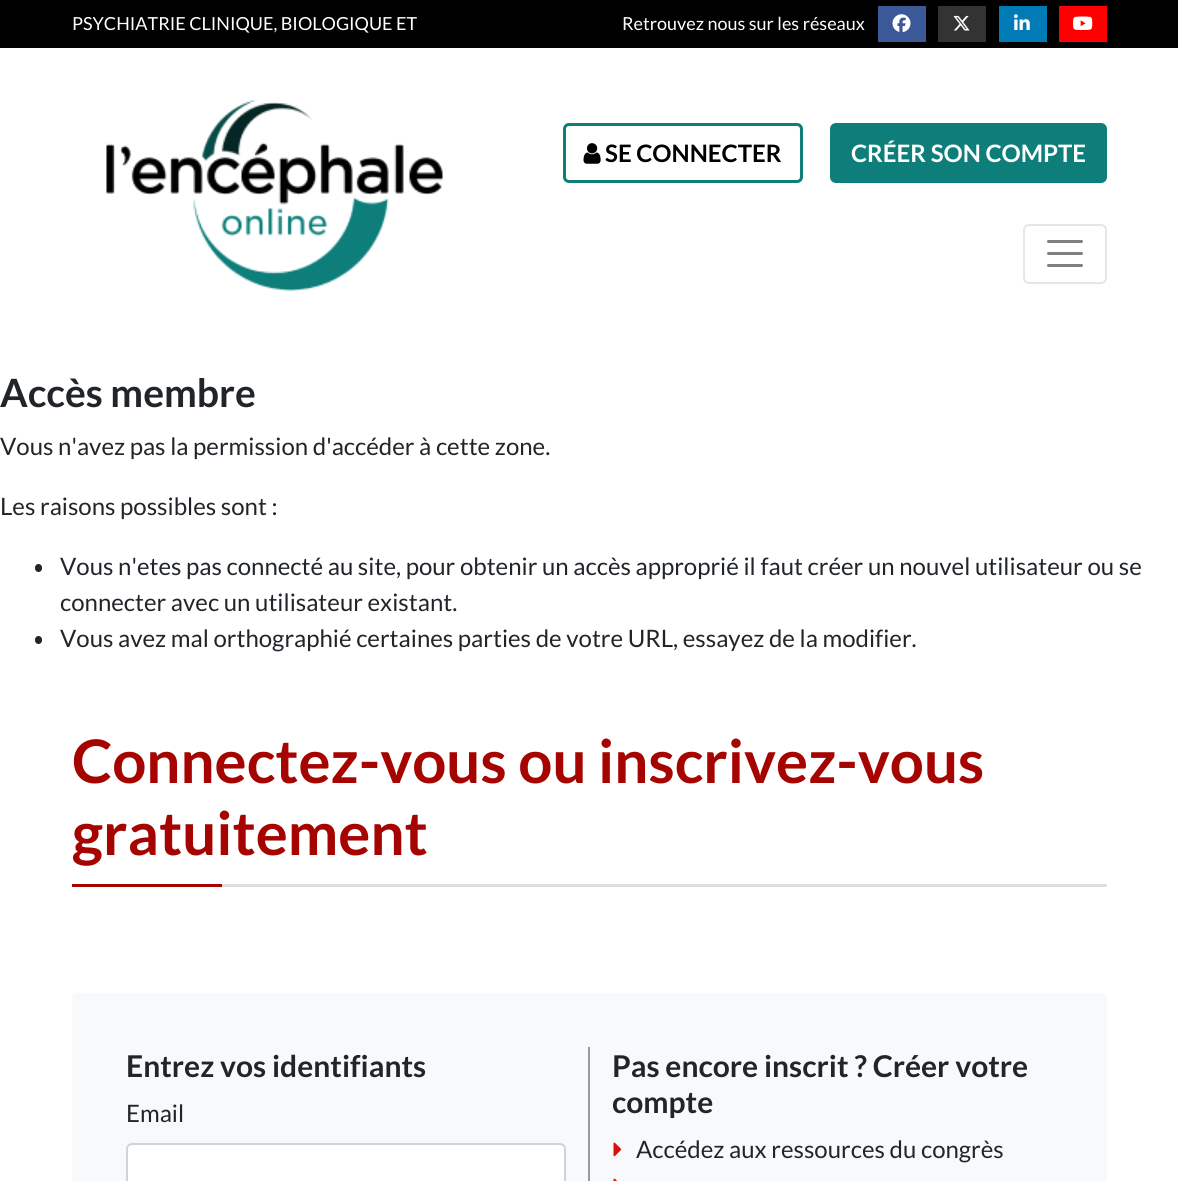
import math
import cairo



def rounded_rect(context, x, y, w, h, r):
    context.new_sub_path()
    for i, (u, v) in enumerate([(x + w - r, y + h - r), (x + r, y + h - r), (x + r, y + r), (x + w - r, y + r)]):
        context.arc(u, v, r, i * math.pi / 2, (i + 1) * math.pi / 2)
    context.close_path()


def draw_image(context, path, x, y, w, h):
    context.save()
    context.set_source_surface(cairo.ImageSurface.create_from_png(path), x, y)
    context.rectangle(x, y, w, h)
    context.fill()
    context.restore()


def draw(context):
    context.set_source_rgb(1, 1, 1)
    context.paint()
    context.set_source_rgb(0, 0, 0)
    context.rectangle(0, 0, 1178, 48)
    context.fill()
    context.set_source_rgb(59 / 255, 89 / 255, 152 / 255)
    context.rectangle(878, 6, 48, 36)
    context.fill()
    draw_image(context, "images/1.png", 892, 14, 19, 19)
    context.set_source_rgb(51 / 255, 51 / 255, 51 / 255)
    context.rectangle(938, 6, 48, 36)
    context.fill()
    draw_image(context, "images/2.png", 953, 15, 17, 16)
    context.set_source_rgb(0, 123 / 255, 181 / 255)
    context.rectangle(999, 6, 48, 36)
    context.fill()
    draw_image(context, "images/3.png", 1014, 14, 16, 16)
    context.set_source_rgb(1, 0, 0)
    context.rectangle(1059, 6, 48, 36)
    context.fill()
    draw_image(context, "images/4.png", 1073, 16, 20, 14)
    draw_image(context, "images/5.png", 106, 99, 337, 193)
    rounded_rect(context, 564.5, 124.5, 237, 57, 4.5)
    context.set_source_rgb(13 / 255, 126 / 255, 121 / 255)
    context.set_line_width(3)
    context.stroke()
    draw_image(context, "images/6.png", 583, 143, 18, 21)
    rounded_rect(context, 831.5, 124.5, 274, 57, 4.5)
    context.fill_preserve()
    context.stroke()
    rounded_rect(context, 1024, 225, 82, 58, 5)
    context.set_source_rgb(230 / 255, 230 / 255, 230 / 255)
    context.set_line_width(2)
    context.stroke()
    context.new_path()
    context.move_to(1048.5, 241.5)
    context.line_to(1081.5, 241.5)
    context.move_to(1048.5, 253.5)
    context.line_to(1081.5, 253.5)
    context.move_to(1048.5, 265.5)
    context.line_to(1081.5, 265.5)
    context.set_source_rgb(128 / 255, 128 / 255, 128 / 255)
    context.set_line_width(3)
    context.set_line_cap(cairo.LineCap.ROUND)
    context.stroke()
    context.set_source_rgb(33 / 255, 37 / 255, 41 / 255)
    rounded_rect(context, 35, 564, 7, 8, 3.5)
    context.fill()
    rounded_rect(context, 35, 636, 7, 8, 3.5)
    context.fill()
    context.set_source_rgb(221 / 255, 221 / 255, 221 / 255)
    context.new_path()
    context.move_to(72, 884)
    context.line_to(1105.5, 884)
    context.curve_to(1106.5, 884, 1107, 884.5, 1107, 885.5)
    context.curve_to(1107, 886.5, 1106.5, 887, 1105.5, 887)
    context.line_to(72, 887)
    context.close_path()
    context.fill()
    context.set_source_rgb(165 / 255, 4 / 255, 0)
    context.rectangle(72, 884, 150, 3)
    context.fill()
    context.set_source_rgb(248 / 255, 249 / 255, 250 / 255)
    rounded_rect(context, 72, 993, 1035, 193, 5)
    context.fill()
    context.set_source_rgb(153 / 255, 153 / 255, 153 / 255)
    context.rectangle(588, 1047, 2, 134)
    context.fill()
    context.set_source_rgb(1, 1, 1)
    rounded_rect(context, 128, 1145, 436, 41, 5)
    context.fill()
    rounded_rect(context, 127, 1144, 438, 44, 5)
    context.set_source_rgb(206 / 255, 212 / 255, 218 / 255)
    context.set_line_width(2)
    context.set_line_cap(cairo.LineCap.BUTT)
    context.stroke()
    draw_image(context, "images/7.png", 613, 1142, 9, 15)
    draw_image(context, "images/8.png", 613, 1178, 4, 3)
    context.select_font_face("Lato")
    context.set_font_size(18)
    context.set_source_rgb(1, 1, 1)
    context.move_to(72, 30)
    context.show_text("PSYCHIATRIE CLINIQUE, BIOLOGIQUE ET")
    context.move_to(622, 30)
    context.show_text("Retrouvez nous sur les réseaux")
    context.select_font_face("Lato", cairo.FontSlant.NORMAL, cairo.FontWeight.BOLD)
    context.set_font_size(24)
    context.set_source_rgb(0, 0, 0)
    context.move_to(605, 162)
    context.show_text("SE CONNECTER")
    context.set_source_rgb(1, 1, 1)
    context.move_to(851, 162)
    context.show_text("CRÉER SON COMPTE")
    context.set_font_size(39)
    context.set_source_rgb(33 / 255, 37 / 255, 41 / 255)
    context.move_to(0, 407)
    context.show_text("Accès membre")
    context.select_font_face("Lato")
    context.set_font_size(24)
    context.move_to(0, 455)
    context.show_text("Vous n'avez pas la permission d'accéder à cette zone.")
    context.move_to(0, 515)
    context.show_text("Les raisons possibles sont :")
    context.move_to(60, 575)
    context.show_text("Vous n'etes pas connecté au site, pour obtenir un accès approprié il faut créer un nouvel utilisateur ou se")
    context.move_to(60, 611)
    context.show_text("connecter avec un utilisateur existant.")
    context.move_to(60, 647)
    context.show_text("Vous avez mal orthographié certaines parties de votre URL, essayez de la modifier.")
    context.select_font_face("Lato", cairo.FontSlant.NORMAL, cairo.FontWeight.BOLD)
    context.set_font_size(60)
    context.set_source_rgb(165 / 255, 4 / 255, 0)
    context.move_to(72, 783)
    context.show_text("Connectez-vous ou inscrivez-vous")
    context.move_to(72, 855)
    context.show_text("gratuitement")
    context.set_font_size(30)
    context.set_source_rgb(33 / 255, 37 / 255, 41 / 255)
    context.move_to(126, 1077)
    context.show_text("Entrez vos identifiants")
    context.select_font_face("Lato")
    context.set_font_size(24)
    context.move_to(126, 1122)
    context.show_text("Email")
    context.select_font_face("Lato", cairo.FontSlant.NORMAL, cairo.FontWeight.BOLD)
    context.set_font_size(30)
    context.move_to(612, 1077)
    context.show_text("Pas encore inscrit ? Créer votre")
    context.move_to(612, 1113)
    context.show_text("compte")
    context.select_font_face("Lato")
    context.set_font_size(24)
    context.move_to(636, 1158)
    context.show_text("Accédez aux ressources du congrès")


surface = cairo.ImageSurface(cairo.Format.RGB24, 1178, 1181)
context = cairo.Context(surface)
options = cairo.FontOptions()
options.set_hint_metrics(cairo.HintMetrics.OFF)
options.set_hint_style(cairo.HintStyle.NONE)
context.set_font_options(options)
context.set_miter_limit(4)
draw(context)
surface.write_to_png("out.png")
